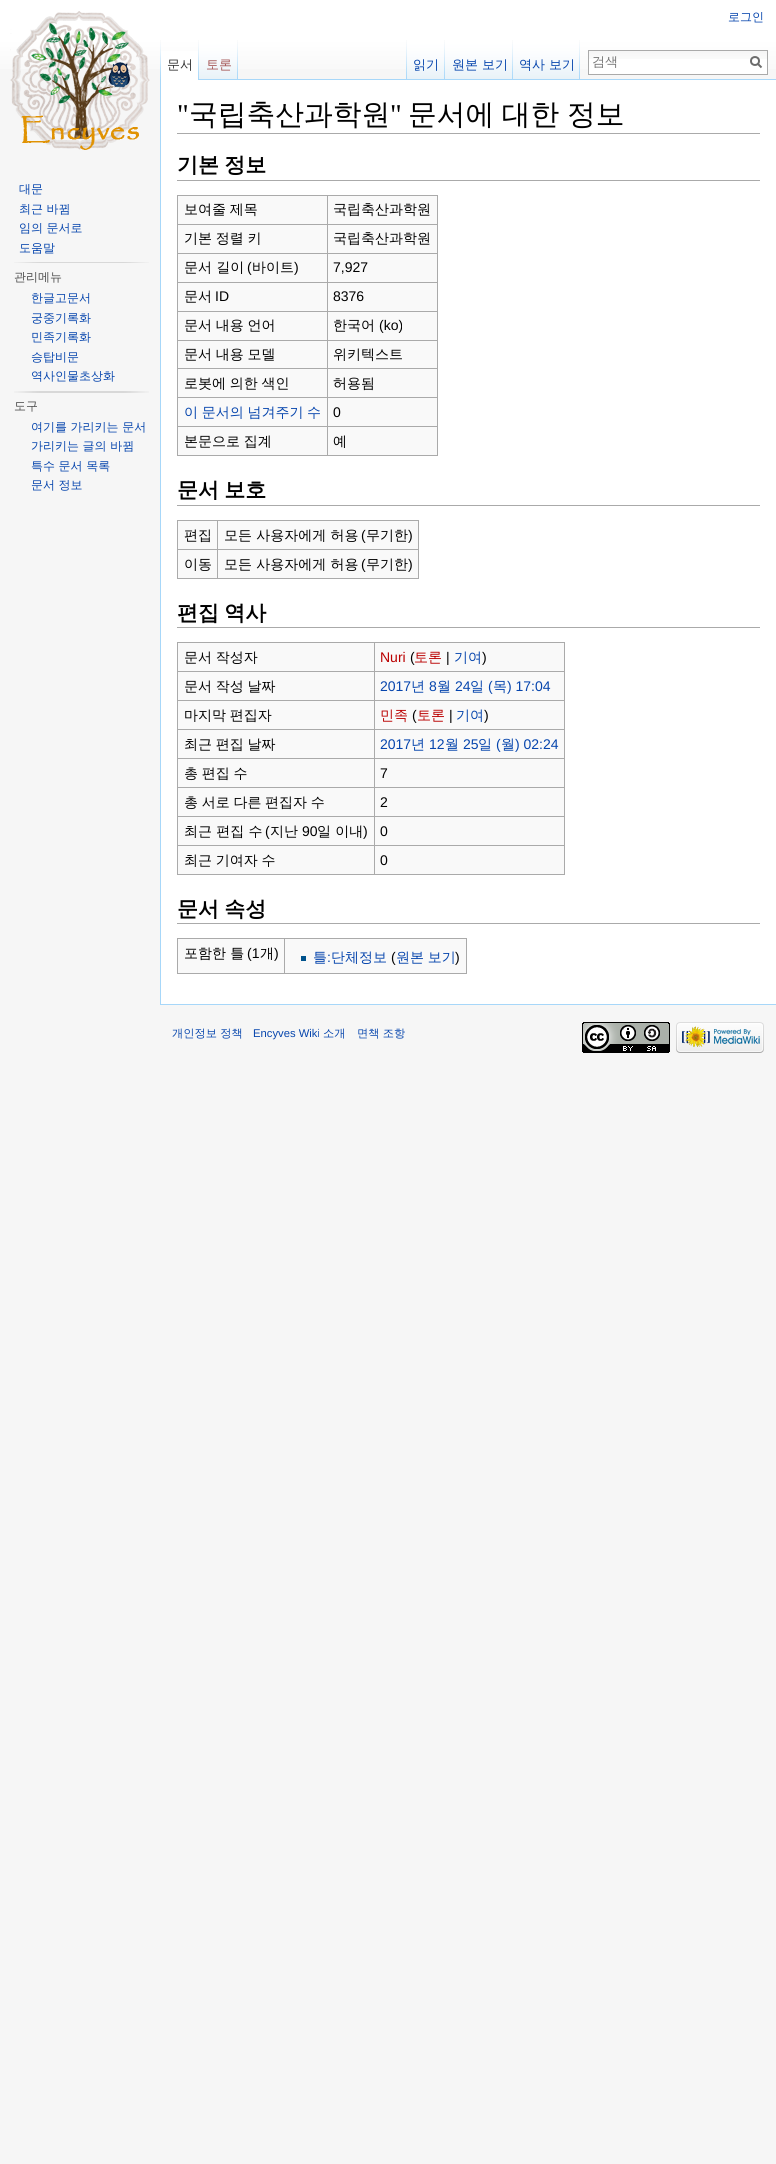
import math
import cairo



def draw_spaced(context, x, y, s, letter, word):
    context.move_to(x, y)
    for ch in s:
        context.show_text(ch)
        context.rel_move_to(letter + word * (ch == ' '), 0)


def draw_image(context, path, x, y, w, h):
    context.save()
    context.set_source_surface(cairo.ImageSurface.create_from_png(path), x, y)
    context.rectangle(x, y, w, h)
    context.fill()
    context.restore()


def draw(context):
    context.set_source_rgb(246 / 255, 246 / 255, 246 / 255)
    context.paint()
    gradient = cairo.LinearGradient(388, 0, 388, 80)
    gradient.add_color_stop_rgba(0.5, 1, 1, 1, 1)
    gradient.add_color_stop_rgba(1, 246 / 255, 246 / 255, 246 / 255, 1)
    context.set_source(gradient)
    context.rectangle(0, 0, 776, 69)
    context.fill()
    draw_image(context, "images/1.png", 160, 40, 1, 39)
    context.set_source_rgb(1, 1, 1)
    context.rectangle(161, 51, 37, 29)
    context.fill()
    draw_image(context, "images/2.png", 198, 40, 1, 40)
    draw_image(context, "images/3.png", 199, 40, 39, 40)
    draw_image(context, "images/4.png", 237, 40, 1, 39)
    draw_image(context, "images/1.png", 406, 40, 1, 39)
    context.set_source_rgb(167 / 255, 215 / 255, 249 / 255)
    context.rectangle(238, 79, 538, 1)
    context.fill()
    draw_image(context, "images/5.png", 407, 40, 38, 40)
    draw_image(context, "images/4.png", 444, 40, 1, 39)
    draw_image(context, "images/6.png", 445, 40, 68, 40)
    draw_image(context, "images/4.png", 512, 40, 1, 39)
    draw_image(context, "images/7.png", 513, 40, 67, 40)
    draw_image(context, "images/4.png", 579, 40, 1, 39)
    context.set_source_rgb(1, 1, 1)
    context.rectangle(589, 59, 178, 15)
    context.fill()
    draw_image(context, "images/8.png", 589, 51, 178, 8)
    context.rectangle(588.5, 50.5, 179, 24)
    context.set_source_rgb(170 / 255, 170 / 255, 170 / 255)
    context.set_line_width(1)
    context.stroke()
    context.new_path()
    context.move_to(761.5, 67.5)
    context.line_to(757.5, 63.5)
    context.set_source_rgb(108 / 255, 108 / 255, 108 / 255)
    context.set_line_width(2)
    context.stroke()
    context.arc(755, 61, 4, 0, 2 * math.pi)
    context.stroke()
    draw_image(context, "images/9.png", 10, 11, 140, 139)
    draw_image(context, "images/10.png", 14, 262, 135, 1)
    draw_image(context, "images/11.png", 14, 391, 135, 2)
    context.set_source_rgb(1, 1, 1)
    context.rectangle(161, 80, 615, 924)
    context.fill()
    context.set_source_rgb(167 / 255, 215 / 255, 249 / 255)
    context.rectangle(160, 1004, 616, 1)
    context.fill()
    context.rectangle(160, 79, 1, 926)
    context.fill()
    context.set_source_rgb(170 / 255, 170 / 255, 170 / 255)
    context.rectangle(177, 133, 583, 1)
    context.fill()
    context.rectangle(177, 180, 583, 1)
    context.fill()
    context.set_source_rgb(249 / 255, 249 / 255, 249 / 255)
    context.rectangle(178, 196, 259, 259)
    context.fill()
    context.set_source_rgb(170 / 255, 170 / 255, 170 / 255)
    context.rectangle(177, 195, 261, 1)
    context.fill()
    context.rectangle(437, 195, 1, 261)
    context.fill()
    context.rectangle(177, 455, 261, 1)
    context.fill()
    context.rectangle(177, 195, 1, 261)
    context.fill()
    context.rectangle(327, 224, 111, 1)
    context.fill()
    context.rectangle(327, 253, 111, 1)
    context.fill()
    context.rectangle(327, 282, 111, 1)
    context.fill()
    context.rectangle(327, 311, 111, 1)
    context.fill()
    context.rectangle(327, 340, 111, 1)
    context.fill()
    context.rectangle(327, 368, 111, 1)
    context.fill()
    context.rectangle(327, 397, 111, 1)
    context.fill()
    context.rectangle(327, 426, 111, 1)
    context.fill()
    context.rectangle(327, 426, 1, 30)
    context.fill()
    context.rectangle(177, 426, 151, 1)
    context.fill()
    context.rectangle(327, 397, 1, 30)
    context.fill()
    context.rectangle(177, 397, 151, 1)
    context.fill()
    context.rectangle(327, 368, 1, 30)
    context.fill()
    context.rectangle(177, 368, 151, 1)
    context.fill()
    context.rectangle(327, 340, 1, 29)
    context.fill()
    context.rectangle(177, 340, 151, 1)
    context.fill()
    context.rectangle(327, 311, 1, 30)
    context.fill()
    context.rectangle(177, 311, 151, 1)
    context.fill()
    context.rectangle(327, 282, 1, 30)
    context.fill()
    context.rectangle(177, 282, 151, 1)
    context.fill()
    context.rectangle(327, 253, 1, 30)
    context.fill()
    context.rectangle(177, 253, 151, 1)
    context.fill()
    context.rectangle(327, 224, 1, 30)
    context.fill()
    context.rectangle(177, 224, 151, 1)
    context.fill()
    context.rectangle(327, 195, 1, 30)
    context.fill()
    context.rectangle(177, 505, 583, 1)
    context.fill()
    context.set_source_rgb(249 / 255, 249 / 255, 249 / 255)
    context.rectangle(178, 521, 240, 57)
    context.fill()
    context.set_source_rgb(170 / 255, 170 / 255, 170 / 255)
    context.rectangle(177, 520, 242, 1)
    context.fill()
    context.rectangle(418, 520, 1, 59)
    context.fill()
    context.rectangle(177, 578, 242, 1)
    context.fill()
    context.rectangle(177, 520, 1, 59)
    context.fill()
    context.rectangle(217, 549, 202, 1)
    context.fill()
    context.rectangle(217, 549, 1, 30)
    context.fill()
    context.rectangle(177, 549, 41, 1)
    context.fill()
    context.rectangle(217, 520, 1, 30)
    context.fill()
    context.rectangle(177, 627, 583, 1)
    context.fill()
    context.set_source_rgb(249 / 255, 249 / 255, 249 / 255)
    context.rectangle(178, 643, 386, 231)
    context.fill()
    context.set_source_rgb(170 / 255, 170 / 255, 170 / 255)
    context.rectangle(177, 642, 388, 1)
    context.fill()
    context.rectangle(564, 642, 1, 233)
    context.fill()
    context.rectangle(177, 874, 388, 1)
    context.fill()
    context.rectangle(177, 642, 1, 233)
    context.fill()
    context.rectangle(374, 671, 191, 1)
    context.fill()
    context.rectangle(374, 700, 191, 1)
    context.fill()
    context.rectangle(374, 729, 191, 1)
    context.fill()
    context.rectangle(374, 758, 191, 1)
    context.fill()
    context.rectangle(374, 787, 191, 1)
    context.fill()
    context.rectangle(374, 816, 191, 1)
    context.fill()
    context.rectangle(374, 845, 191, 1)
    context.fill()
    context.rectangle(374, 845, 1, 30)
    context.fill()
    context.rectangle(177, 845, 198, 1)
    context.fill()
    context.rectangle(374, 816, 1, 30)
    context.fill()
    context.rectangle(177, 816, 198, 1)
    context.fill()
    context.rectangle(374, 787, 1, 30)
    context.fill()
    context.rectangle(177, 787, 198, 1)
    context.fill()
    context.rectangle(374, 758, 1, 30)
    context.fill()
    context.rectangle(177, 758, 198, 1)
    context.fill()
    context.rectangle(374, 729, 1, 30)
    context.fill()
    context.rectangle(177, 729, 198, 1)
    context.fill()
    context.rectangle(374, 700, 1, 30)
    context.fill()
    context.rectangle(177, 700, 198, 1)
    context.fill()
    context.rectangle(374, 671, 1, 30)
    context.fill()
    context.rectangle(177, 671, 198, 1)
    context.fill()
    context.rectangle(374, 642, 1, 30)
    context.fill()
    context.rectangle(177, 923, 583, 1)
    context.fill()
    context.set_source_rgb(249 / 255, 249 / 255, 249 / 255)
    context.rectangle(178, 939, 288, 34)
    context.fill()
    context.set_source_rgb(170 / 255, 170 / 255, 170 / 255)
    context.rectangle(177, 938, 290, 1)
    context.fill()
    context.rectangle(466, 938, 1, 36)
    context.fill()
    context.rectangle(177, 973, 290, 1)
    context.fill()
    context.rectangle(177, 938, 1, 36)
    context.fill()
    context.rectangle(284, 938, 1, 36)
    context.fill()
    context.set_source_rgb(0, 82 / 255, 140 / 255)
    context.rectangle(301, 956, 5, 5)
    context.fill()
    draw_image(context, "images/12.png", 582, 1022, 88, 31)
    draw_image(context, "images/13.png", 676, 1022, 88, 31)
    context.select_font_face("WenQuanYi Zen Hei Medium")
    context.set_font_size(12)
    context.set_source_rgb(6 / 255, 69 / 255, 173 / 255)
    context.move_to(728, 21)
    context.show_text("로그인")
    context.set_font_size(13)
    context.set_source_rgb(51 / 255, 51 / 255, 51 / 255)
    context.move_to(167, 69)
    context.show_text("문서")
    context.set_source_rgb(165 / 255, 88 / 255, 88 / 255)
    context.move_to(206, 69)
    context.show_text("토론")
    context.set_source_rgb(6 / 255, 69 / 255, 173 / 255)
    context.move_to(413, 69)
    context.show_text("읽기")
    context.move_to(452, 69)
    context.show_text("원본 보기")
    context.move_to(519, 69)
    context.show_text("역사 보기")
    context.set_source_rgb(117 / 255, 117 / 255, 117 / 255)
    context.move_to(592, 66)
    context.show_text("검색")
    context.set_font_size(12)
    context.set_source_rgb(6 / 255, 69 / 255, 173 / 255)
    context.move_to(19, 193)
    context.show_text("대문")
    context.move_to(19, 213)
    context.show_text("최근 바뀜")
    context.move_to(19, 232)
    context.show_text("임의 문서로")
    context.move_to(19, 252)
    context.show_text("도움말")
    context.set_source_rgb(77 / 255, 77 / 255, 77 / 255)
    context.move_to(14, 281)
    context.show_text("관리메뉴")
    context.set_source_rgb(6 / 255, 69 / 255, 173 / 255)
    context.move_to(31, 302)
    context.show_text("한글고문서")
    context.move_to(31, 322)
    context.show_text("궁중기록화")
    context.move_to(31, 341)
    context.show_text("민족기록화")
    context.move_to(31, 361)
    context.show_text("승탑비문")
    context.move_to(31, 380)
    context.show_text("역사인물초상화")
    context.set_source_rgb(77 / 255, 77 / 255, 77 / 255)
    context.move_to(14, 410)
    context.show_text("도구")
    context.set_source_rgb(6 / 255, 69 / 255, 173 / 255)
    context.move_to(31, 431)
    context.show_text("여기를 가리키는 문서")
    context.move_to(31, 450)
    context.show_text("가리키는 글의 바뀜")
    context.move_to(31, 470)
    context.show_text("특수 문서 목록")
    context.move_to(31, 489)
    context.show_text("문서 정보")
    context.select_font_face("Liberation Serif")
    context.set_font_size(28.75)
    context.set_source_rgb(0, 0, 0)
    context.move_to(177, 124)
    context.show_text("\"")
    context.select_font_face("WenQuanYi Zen Hei Medium")
    context.move_to(189, 124)
    context.show_text("국립축산과학원")
    context.select_font_face("Liberation Serif")
    context.move_to(390, 124)
    context.show_text("\"")
    context.select_font_face("WenQuanYi Zen Hei Medium")
    draw_spaced(context, 408, 124, "문서에 대한 정보", 0, -1)
    context.select_font_face("WenQuanYi Zen Hei", cairo.FontSlant.NORMAL, cairo.FontWeight.BOLD)
    context.set_font_size(21)
    draw_spaced(context, 177, 172, "기본 정보", 0, -1)
    context.select_font_face("WenQuanYi Zen Hei Medium")
    context.set_font_size(14)
    draw_spaced(context, 184, 214, "보여줄 제목", 0, -0.5)
    context.move_to(333, 214)
    context.show_text("국립축산과학원")
    draw_spaced(context, 184, 243, "기본 정렬 키", 0, -0.5)
    context.move_to(333, 243)
    context.show_text("국립축산과학원")
    context.move_to(184, 272)
    context.show_text("문서 길이")
    context.select_font_face("Liberation Sans")
    context.move_to(247, 272)
    context.show_text("(")
    context.select_font_face("WenQuanYi Zen Hei Medium")
    context.move_to(252, 272)
    context.show_text("바이트")
    context.select_font_face("Liberation Sans")
    context.move_to(294, 272)
    context.show_text(")")
    context.move_to(333, 272)
    context.show_text("7,927")
    context.select_font_face("WenQuanYi Zen Hei Medium")
    context.move_to(184, 301)
    context.show_text("문서")
    context.select_font_face("Liberation Sans")
    context.move_to(215, 301)
    context.show_text("ID")
    context.move_to(333, 301)
    context.show_text("8376")
    context.select_font_face("WenQuanYi Zen Hei Medium")
    draw_spaced(context, 184, 330, "문서 내용 언어", 0, -0.5)
    context.move_to(333, 330)
    context.show_text("한국어")
    context.select_font_face("Liberation Sans")
    context.move_to(379, 330)
    context.show_text("(ko)")
    context.select_font_face("WenQuanYi Zen Hei Medium")
    draw_spaced(context, 184, 359, "문서 내용 모델", 0, -0.5)
    context.move_to(333, 359)
    context.show_text("위키텍스트")
    draw_spaced(context, 184, 388, "로봇에 의한 색인", 0, -0.5)
    context.move_to(333, 388)
    context.show_text("허용됨")
    context.set_source_rgb(6 / 255, 69 / 255, 173 / 255)
    draw_spaced(context, 184, 417, "이 문서의 넘겨주기 수", 0, -0.5)
    context.select_font_face("Liberation Sans")
    context.set_source_rgb(0, 0, 0)
    context.move_to(333, 417)
    context.show_text("0")
    context.select_font_face("WenQuanYi Zen Hei Medium")
    draw_spaced(context, 184, 446, "본문으로 집계", 0, -0.5)
    context.move_to(333, 446)
    context.show_text("예")
    context.select_font_face("WenQuanYi Zen Hei", cairo.FontSlant.NORMAL, cairo.FontWeight.BOLD)
    context.set_font_size(21)
    draw_spaced(context, 177, 497, "문서 보호", 0, -1)
    context.select_font_face("WenQuanYi Zen Hei Medium")
    context.set_font_size(14)
    context.move_to(184, 540)
    context.show_text("편집")
    context.move_to(224, 540)
    context.show_text("모든 사용자에게 허용")
    context.select_font_face("Liberation Sans")
    context.move_to(361, 540)
    context.show_text("(")
    context.select_font_face("WenQuanYi Zen Hei Medium")
    context.move_to(366, 540)
    context.show_text("무기한")
    context.select_font_face("Liberation Sans")
    context.move_to(408, 540)
    context.show_text(")")
    context.select_font_face("WenQuanYi Zen Hei Medium")
    context.move_to(184, 569)
    context.show_text("이동")
    context.move_to(224, 569)
    context.show_text("모든 사용자에게 허용")
    context.select_font_face("Liberation Sans")
    context.move_to(361, 569)
    context.show_text("(")
    context.select_font_face("WenQuanYi Zen Hei Medium")
    context.move_to(366, 569)
    context.show_text("무기한")
    context.select_font_face("Liberation Sans")
    context.move_to(408, 569)
    context.show_text(")")
    context.select_font_face("WenQuanYi Zen Hei", cairo.FontSlant.NORMAL, cairo.FontWeight.BOLD)
    context.set_font_size(21)
    draw_spaced(context, 177, 620, "편집 역사", 0, -1)
    context.select_font_face("WenQuanYi Zen Hei Medium")
    context.set_font_size(14)
    draw_spaced(context, 184, 662, "문서 작성자", 0, -0.5)
    context.select_font_face("Liberation Sans")
    context.set_source_rgb(186 / 255, 0, 0)
    context.move_to(380, 662)
    context.show_text("Nuri")
    context.set_source_rgb(0, 0, 0)
    context.move_to(410, 662)
    context.show_text("(")
    context.select_font_face("WenQuanYi Zen Hei Medium")
    context.set_source_rgb(186 / 255, 0, 0)
    context.move_to(414, 662)
    context.show_text("토론")
    context.select_font_face("Liberation Sans")
    context.set_source_rgb(0, 0, 0)
    context.move_to(446, 662)
    context.show_text("|")
    context.select_font_face("WenQuanYi Zen Hei Medium")
    context.set_source_rgb(6 / 255, 69 / 255, 173 / 255)
    context.move_to(454, 662)
    context.show_text("기여")
    context.select_font_face("Liberation Sans")
    context.set_source_rgb(0, 0, 0)
    context.move_to(482, 662)
    context.show_text(")")
    context.select_font_face("WenQuanYi Zen Hei Medium")
    draw_spaced(context, 184, 691, "문서 작성 날짜", 0, -0.5)
    context.select_font_face("Liberation Sans")
    context.set_source_rgb(6 / 255, 69 / 255, 173 / 255)
    context.move_to(380, 691)
    context.show_text("2017")
    context.select_font_face("WenQuanYi Zen Hei Medium")
    context.move_to(411, 691)
    context.show_text("년")
    context.select_font_face("Liberation Sans")
    context.move_to(429, 691)
    context.show_text("8")
    context.select_font_face("WenQuanYi Zen Hei Medium")
    context.move_to(437, 691)
    context.show_text("월")
    context.select_font_face("Liberation Sans")
    context.move_to(455, 691)
    context.show_text("24")
    context.select_font_face("WenQuanYi Zen Hei Medium")
    context.move_to(470, 691)
    context.show_text("일")
    context.select_font_face("Liberation Sans")
    context.move_to(488, 691)
    context.show_text("(")
    context.select_font_face("WenQuanYi Zen Hei Medium")
    context.move_to(493, 691)
    context.show_text("목")
    context.select_font_face("Liberation Sans")
    context.move_to(507, 691)
    context.show_text(") 17:04")
    context.select_font_face("WenQuanYi Zen Hei Medium")
    context.set_source_rgb(0, 0, 0)
    draw_spaced(context, 184, 720, "마지막 편집자", 0, -0.5)
    context.set_source_rgb(186 / 255, 0, 0)
    context.move_to(380, 720)
    context.show_text("민족")
    context.select_font_face("Liberation Sans")
    context.set_source_rgb(0, 0, 0)
    context.move_to(412, 720)
    context.show_text("(")
    context.select_font_face("WenQuanYi Zen Hei Medium")
    context.set_source_rgb(186 / 255, 0, 0)
    context.move_to(417, 720)
    context.show_text("토론")
    context.select_font_face("Liberation Sans")
    context.set_source_rgb(0, 0, 0)
    context.move_to(449, 720)
    context.show_text("|")
    context.select_font_face("WenQuanYi Zen Hei Medium")
    context.set_source_rgb(6 / 255, 69 / 255, 173 / 255)
    context.move_to(456, 720)
    context.show_text("기여")
    context.select_font_face("Liberation Sans")
    context.set_source_rgb(0, 0, 0)
    context.move_to(484, 720)
    context.show_text(")")
    context.select_font_face("WenQuanYi Zen Hei Medium")
    draw_spaced(context, 184, 749, "최근 편집 날짜", 0, -0.5)
    context.select_font_face("Liberation Sans")
    context.set_source_rgb(6 / 255, 69 / 255, 173 / 255)
    context.move_to(380, 749)
    context.show_text("2017")
    context.select_font_face("WenQuanYi Zen Hei Medium")
    context.move_to(411, 749)
    context.show_text("년")
    context.select_font_face("Liberation Sans")
    context.move_to(429, 749)
    context.show_text("12")
    context.select_font_face("WenQuanYi Zen Hei Medium")
    context.move_to(445, 749)
    context.show_text("월")
    context.select_font_face("Liberation Sans")
    context.move_to(463, 749)
    context.show_text("25")
    context.select_font_face("WenQuanYi Zen Hei Medium")
    context.move_to(478, 749)
    context.show_text("일")
    context.select_font_face("Liberation Sans")
    context.move_to(496, 749)
    context.show_text("(")
    context.select_font_face("WenQuanYi Zen Hei Medium")
    context.move_to(501, 749)
    context.show_text("월")
    context.select_font_face("Liberation Sans")
    context.move_to(515, 749)
    context.show_text(") 02:24")
    context.select_font_face("WenQuanYi Zen Hei Medium")
    context.set_source_rgb(0, 0, 0)
    draw_spaced(context, 184, 778, "총 편집 수", 0, -0.5)
    context.select_font_face("Liberation Sans")
    context.move_to(380, 778)
    context.show_text("7")
    context.select_font_face("WenQuanYi Zen Hei Medium")
    draw_spaced(context, 184, 807, "총 서로 다른 편집자 수", 0, -0.5)
    context.select_font_face("Liberation Sans")
    context.move_to(380, 807)
    context.show_text("2")
    context.select_font_face("WenQuanYi Zen Hei Medium")
    context.move_to(184, 836)
    context.show_text("최근 편집 수")
    context.select_font_face("Liberation Sans")
    context.move_to(265, 836)
    context.show_text("(")
    context.select_font_face("WenQuanYi Zen Hei Medium")
    context.move_to(270, 836)
    context.show_text("지난")
    context.select_font_face("Liberation Sans")
    context.move_to(302, 836)
    context.show_text("90")
    context.select_font_face("WenQuanYi Zen Hei Medium")
    context.move_to(317, 836)
    context.show_text("일 이내")
    context.select_font_face("Liberation Sans")
    context.move_to(363, 836)
    context.show_text(")")
    context.move_to(380, 836)
    context.show_text("0")
    context.select_font_face("WenQuanYi Zen Hei Medium")
    draw_spaced(context, 184, 865, "최근 기여자 수", 0, -0.5)
    context.select_font_face("Liberation Sans")
    context.move_to(380, 865)
    context.show_text("0")
    context.select_font_face("WenQuanYi Zen Hei", cairo.FontSlant.NORMAL, cairo.FontWeight.BOLD)
    context.set_font_size(21)
    draw_spaced(context, 177, 916, "문서 속성", 0, -1)
    context.select_font_face("WenQuanYi Zen Hei Medium")
    context.set_font_size(14)
    context.move_to(184, 958)
    context.show_text("포함한 틀")
    context.select_font_face("Liberation Sans")
    context.move_to(247, 958)
    context.show_text("(1")
    context.select_font_face("WenQuanYi Zen Hei Medium")
    context.move_to(260, 958)
    context.show_text("개")
    context.select_font_face("Liberation Sans")
    context.move_to(274, 958)
    context.show_text(")")
    context.select_font_face("WenQuanYi Zen Hei Medium")
    context.set_source_rgb(6 / 255, 69 / 255, 173 / 255)
    context.move_to(313, 962)
    context.show_text("틀")
    context.select_font_face("Liberation Sans")
    context.move_to(327, 962)
    context.show_text(":")
    context.select_font_face("WenQuanYi Zen Hei Medium")
    context.move_to(331, 962)
    context.show_text("단체정보")
    context.select_font_face("Liberation Sans")
    context.set_source_rgb(0, 0, 0)
    context.move_to(391, 962)
    context.show_text("(")
    context.select_font_face("WenQuanYi Zen Hei Medium")
    context.set_source_rgb(6 / 255, 69 / 255, 173 / 255)
    draw_spaced(context, 396, 962, "원본 보기", 0, -0.5)
    context.select_font_face("Liberation Sans")
    context.set_source_rgb(0, 0, 0)
    context.move_to(455, 962)
    context.show_text(")")
    context.select_font_face("WenQuanYi Zen Hei Medium")
    context.set_font_size(11.25)
    context.set_source_rgb(6 / 255, 69 / 255, 173 / 255)
    context.move_to(172, 1037)
    context.show_text("개인정보 정책")
    context.select_font_face("Liberation Sans")
    context.move_to(253, 1037)
    context.show_text("Encyves Wiki")
    context.select_font_face("WenQuanYi Zen Hei Medium")
    context.move_to(323, 1037)
    context.show_text("소개")
    context.move_to(357, 1037)
    context.show_text("면책 조항")


surface = cairo.ImageSurface(cairo.Format.RGB24, 776, 2164)
context = cairo.Context(surface)
options = cairo.FontOptions()
options.set_hint_metrics(cairo.HintMetrics.OFF)
options.set_hint_style(cairo.HintStyle.NONE)
context.set_font_options(options)
context.set_miter_limit(4)
draw(context)
surface.write_to_png("out.png")
